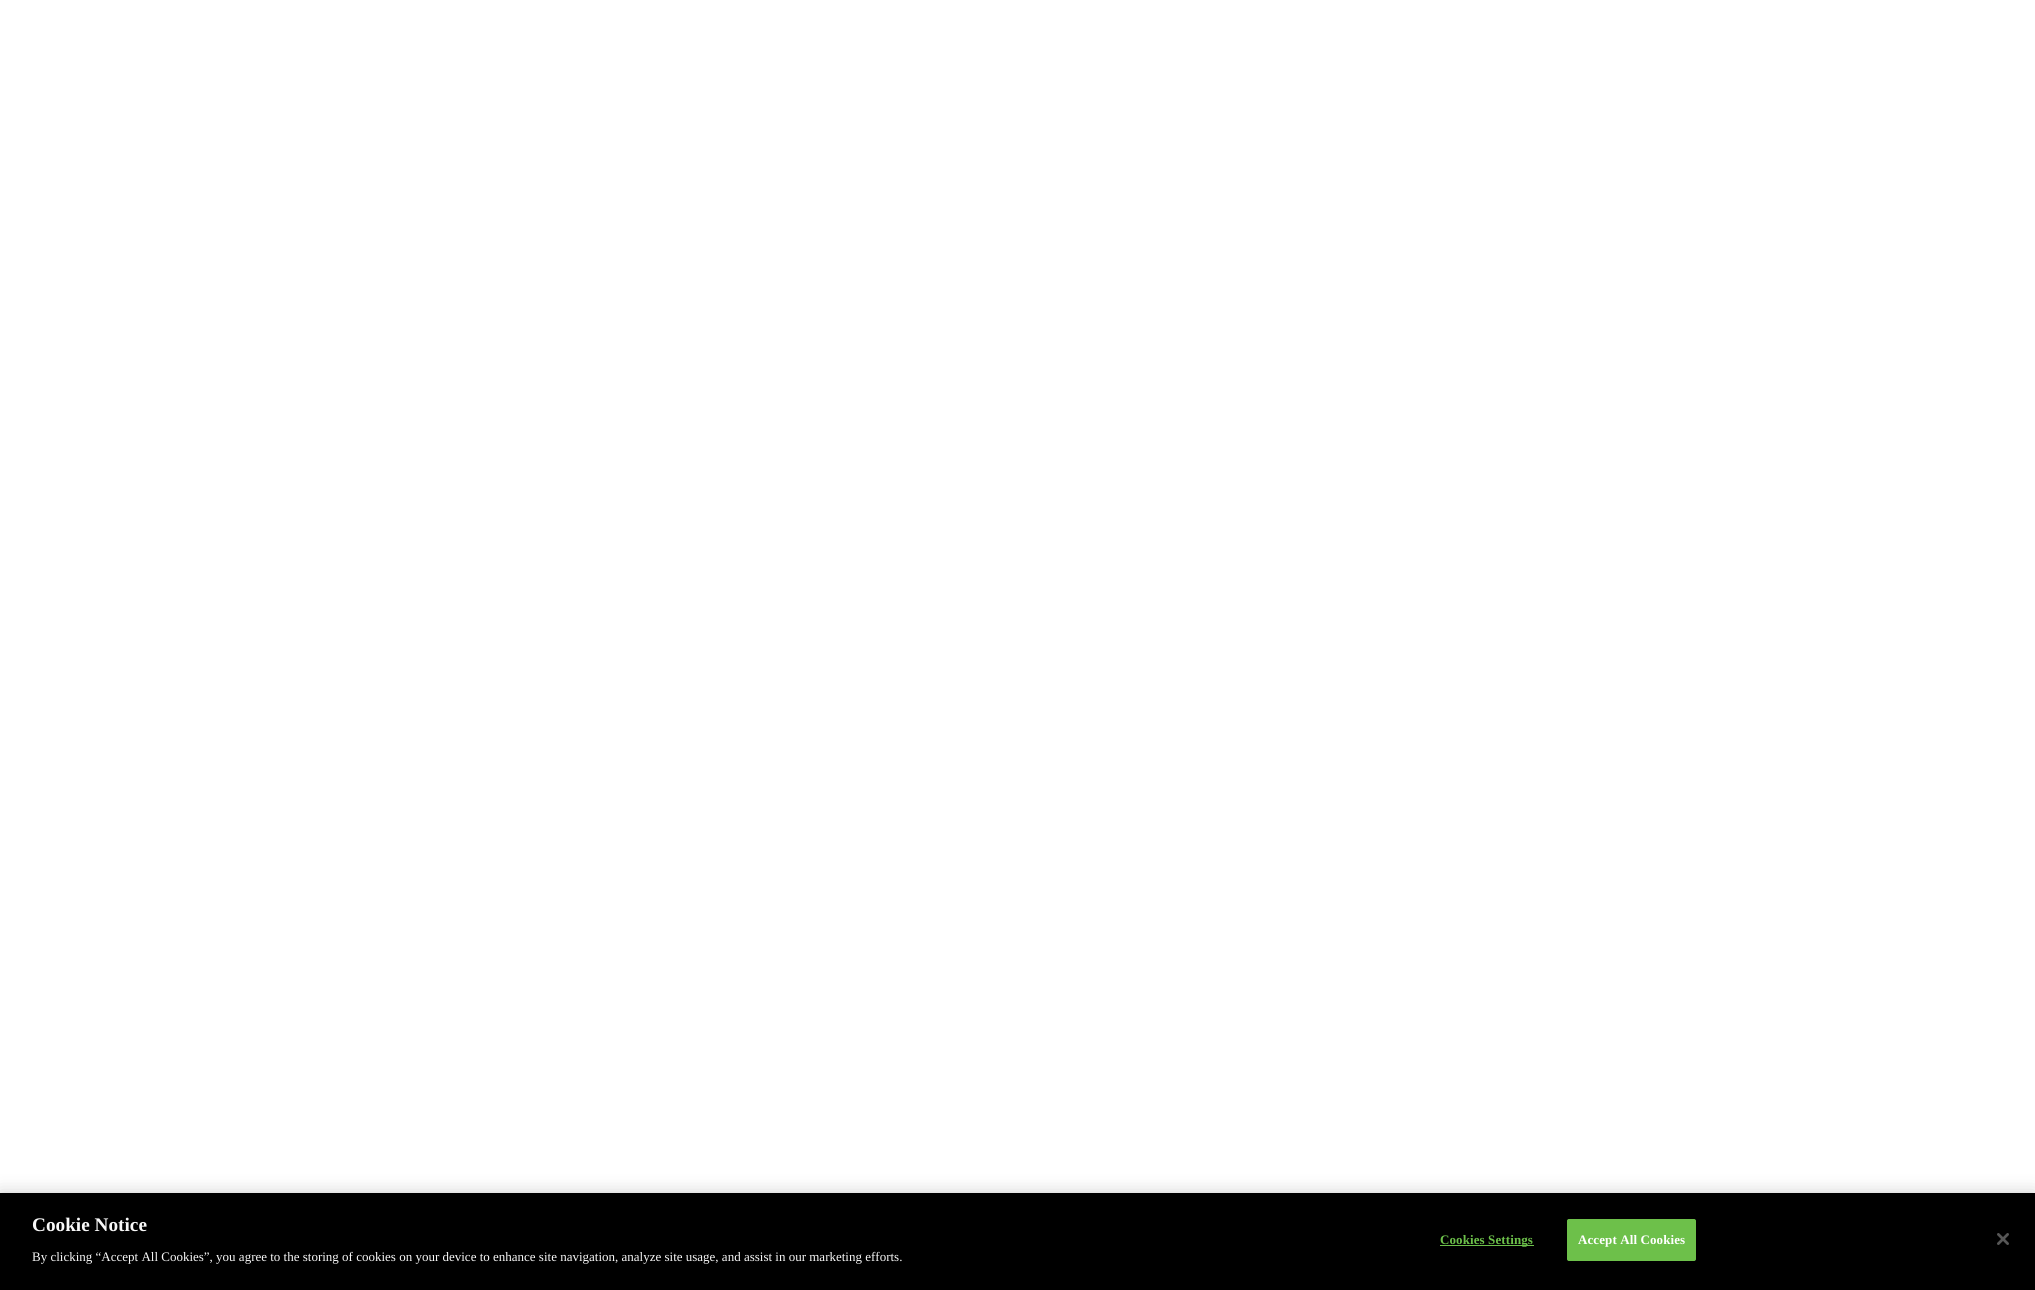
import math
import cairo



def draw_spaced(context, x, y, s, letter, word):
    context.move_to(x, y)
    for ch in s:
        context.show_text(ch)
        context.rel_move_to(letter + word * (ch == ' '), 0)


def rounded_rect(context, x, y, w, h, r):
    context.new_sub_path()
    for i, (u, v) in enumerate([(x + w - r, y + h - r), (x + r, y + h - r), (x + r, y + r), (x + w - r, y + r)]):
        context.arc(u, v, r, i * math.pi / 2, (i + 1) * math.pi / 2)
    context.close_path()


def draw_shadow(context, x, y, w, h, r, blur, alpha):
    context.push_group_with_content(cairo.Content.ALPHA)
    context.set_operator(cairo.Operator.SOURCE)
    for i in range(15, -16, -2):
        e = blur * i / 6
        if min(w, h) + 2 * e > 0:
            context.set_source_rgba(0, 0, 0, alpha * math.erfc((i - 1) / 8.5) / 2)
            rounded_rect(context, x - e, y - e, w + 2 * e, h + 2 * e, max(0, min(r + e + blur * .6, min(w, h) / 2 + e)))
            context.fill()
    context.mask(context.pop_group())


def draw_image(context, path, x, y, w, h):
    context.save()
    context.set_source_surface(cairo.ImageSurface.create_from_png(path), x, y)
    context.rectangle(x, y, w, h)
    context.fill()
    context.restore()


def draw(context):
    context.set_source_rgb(1, 1, 1)
    context.paint()
    context.set_source_rgb(0, 0, 0)
    draw_shadow(context, 0, 1193, 2035, 97, 0, 9, 0.2)
    context.set_source_rgb(0, 0, 0)
    context.rectangle(0, 1193, 2035, 97)
    context.fill()
    context.set_source_rgb(108 / 255, 192 / 255, 74 / 255)
    context.rectangle(1440, 1245, 94, 1)
    context.fill()
    context.set_source_rgb(109 / 255, 192 / 255, 74 / 255)
    rounded_rect(context, 1567.5, 1219.5, 128, 41, 1.5)
    context.fill_preserve()
    context.set_line_width(1)
    context.stroke()
    draw_image(context, "images/1.png", 1997, 1233, 12, 12)
    context.select_font_face("Liberation Serif", cairo.FontSlant.NORMAL, cairo.FontWeight.BOLD)
    context.set_font_size(19.25)
    context.set_source_rgb(248 / 255, 248 / 255, 248 / 255)
    context.move_to(32, 1231)
    context.show_text("Cookie Notice")
    context.select_font_face("Liberation Serif")
    context.set_font_size(13)
    context.move_to(32, 1261)
    context.show_text("By clicking “Accept All Cookies”, you agree to the storing of cookies on your device to enhance site navigation, analyze site usage, and assist in our marketing efforts.")
    context.select_font_face("Liberation Serif", cairo.FontSlant.NORMAL, cairo.FontWeight.BOLD)
    context.set_source_rgb(108 / 255, 192 / 255, 74 / 255)
    draw_spaced(context, 1440, 1244, "Cookies Settings", 0.1, 0)
    context.set_source_rgb(1, 1, 1)
    draw_spaced(context, 1578, 1244, "Accept All Cookies", 0.1, 0)


surface = cairo.ImageSurface(cairo.Format.RGB24, 2035, 1290)
context = cairo.Context(surface)
options = cairo.FontOptions()
options.set_hint_metrics(cairo.HintMetrics.OFF)
options.set_hint_style(cairo.HintStyle.NONE)
context.set_font_options(options)
context.set_miter_limit(4)
draw(context)
surface.write_to_png("out.png")
